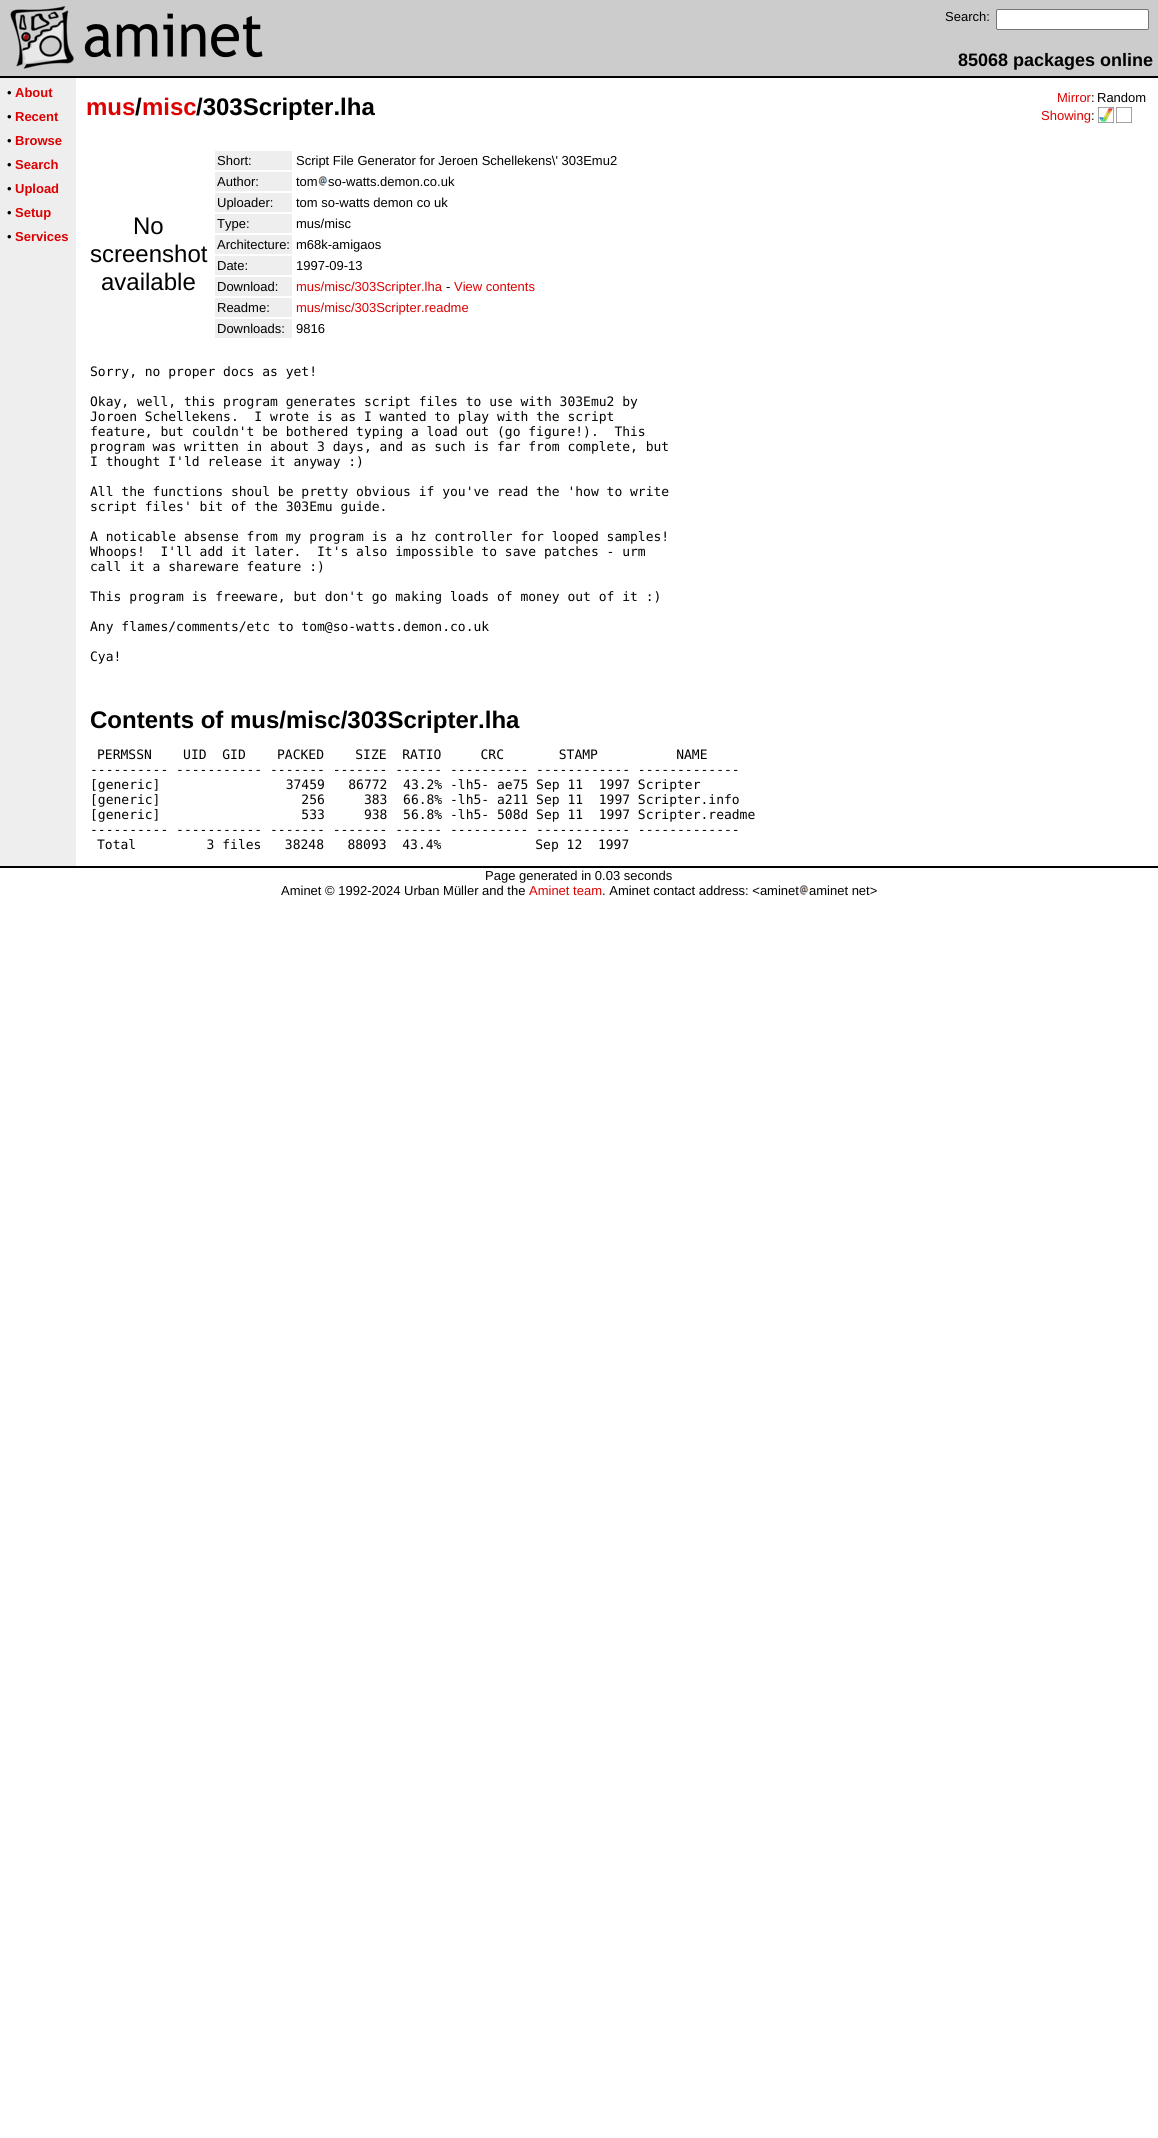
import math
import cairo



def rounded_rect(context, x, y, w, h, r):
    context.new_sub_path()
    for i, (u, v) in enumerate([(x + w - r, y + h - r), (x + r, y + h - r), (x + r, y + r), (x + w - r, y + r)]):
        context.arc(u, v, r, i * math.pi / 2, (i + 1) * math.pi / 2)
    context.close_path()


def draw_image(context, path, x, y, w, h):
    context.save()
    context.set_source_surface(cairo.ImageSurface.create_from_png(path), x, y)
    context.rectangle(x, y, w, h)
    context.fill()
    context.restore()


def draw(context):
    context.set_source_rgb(1, 1, 1)
    context.paint()
    context.set_source_rgb(204 / 255, 204 / 255, 204 / 255)
    context.rectangle(0, 0, 1158, 76)
    context.fill()
    draw_image(context, "images/1.png", 10, 6, 64, 63)
    draw_image(context, "images/2.png", 84, 13, 179, 45)
    context.set_source_rgb(1, 1, 1)
    rounded_rect(context, 996.5, 9.5, 152, 20, 1.5)
    context.fill_preserve()
    context.set_source_rgb(118 / 255, 118 / 255, 118 / 255)
    context.set_line_width(1)
    context.stroke()
    context.set_source_rgb(0, 0, 0)
    context.rectangle(0, 76, 1158, 2)
    context.fill()
    context.set_source_rgb(238 / 255, 238 / 255, 238 / 255)
    context.rectangle(0, 78, 76, 788)
    context.fill()
    draw_image(context, "images/3.png", 1098, 107, 16, 16)
    draw_image(context, "images/4.png", 1116, 107, 16, 16)
    context.rectangle(215, 151, 77, 19)
    context.fill()
    context.rectangle(215, 172, 77, 19)
    context.fill()
    draw_image(context, "images/5.png", 318, 176, 10, 10)
    context.rectangle(215, 193, 77, 19)
    context.fill()
    context.rectangle(215, 214, 77, 19)
    context.fill()
    context.rectangle(215, 235, 77, 19)
    context.fill()
    context.rectangle(215, 256, 77, 19)
    context.fill()
    context.rectangle(215, 277, 77, 19)
    context.fill()
    context.rectangle(215, 298, 77, 19)
    context.fill()
    context.rectangle(215, 319, 77, 19)
    context.fill()
    context.set_source_rgb(0, 0, 0)
    context.rectangle(0, 866, 1158, 2)
    context.fill()
    draw_image(context, "images/5.png", 799, 885, 10, 10)
    context.select_font_face("Liberation Sans")
    context.set_font_size(13)
    context.move_to(945, 21)
    context.show_text("Search:")
    context.select_font_face("Liberation Sans", cairo.FontSlant.NORMAL, cairo.FontWeight.BOLD)
    context.set_font_size(18)
    context.move_to(958, 66)
    context.show_text("85068 packages online")
    context.select_font_face("Liberation Sans")
    context.set_font_size(13)
    context.move_to(7, 97)
    context.show_text("•")
    context.select_font_face("Liberation Sans", cairo.FontSlant.NORMAL, cairo.FontWeight.BOLD)
    context.set_source_rgb(221 / 255, 0, 0)
    context.move_to(15, 97)
    context.show_text("About")
    context.select_font_face("Liberation Sans")
    context.set_source_rgb(0, 0, 0)
    context.move_to(7, 121)
    context.show_text("•")
    context.select_font_face("Liberation Sans", cairo.FontSlant.NORMAL, cairo.FontWeight.BOLD)
    context.set_source_rgb(221 / 255, 0, 0)
    context.move_to(15, 121)
    context.show_text("Recent")
    context.select_font_face("Liberation Sans")
    context.set_source_rgb(0, 0, 0)
    context.move_to(7, 145)
    context.show_text("•")
    context.select_font_face("Liberation Sans", cairo.FontSlant.NORMAL, cairo.FontWeight.BOLD)
    context.set_source_rgb(221 / 255, 0, 0)
    context.move_to(15, 145)
    context.show_text("Browse")
    context.select_font_face("Liberation Sans")
    context.set_source_rgb(0, 0, 0)
    context.move_to(7, 169)
    context.show_text("•")
    context.select_font_face("Liberation Sans", cairo.FontSlant.NORMAL, cairo.FontWeight.BOLD)
    context.set_source_rgb(221 / 255, 0, 0)
    context.move_to(15, 169)
    context.show_text("Search")
    context.select_font_face("Liberation Sans")
    context.set_source_rgb(0, 0, 0)
    context.move_to(7, 193)
    context.show_text("•")
    context.select_font_face("Liberation Sans", cairo.FontSlant.NORMAL, cairo.FontWeight.BOLD)
    context.set_source_rgb(221 / 255, 0, 0)
    context.move_to(15, 193)
    context.show_text("Upload")
    context.select_font_face("Liberation Sans")
    context.set_source_rgb(0, 0, 0)
    context.move_to(7, 217)
    context.show_text("•")
    context.select_font_face("Liberation Sans", cairo.FontSlant.NORMAL, cairo.FontWeight.BOLD)
    context.set_source_rgb(221 / 255, 0, 0)
    context.move_to(15, 217)
    context.show_text("Setup")
    context.select_font_face("Liberation Sans")
    context.set_source_rgb(0, 0, 0)
    context.move_to(7, 241)
    context.show_text("•")
    context.select_font_face("Liberation Sans", cairo.FontSlant.NORMAL, cairo.FontWeight.BOLD)
    context.set_source_rgb(221 / 255, 0, 0)
    context.move_to(15, 241)
    context.show_text("Services")
    context.set_font_size(24)
    context.move_to(86, 115)
    context.show_text("mus misc")
    context.set_source_rgb(0, 0, 0)
    context.move_to(135, 115)
    context.show_text("/")
    context.move_to(196, 115)
    context.show_text("/303Scripter.lha")
    context.select_font_face("Liberation Sans")
    context.set_font_size(13)
    context.set_source_rgb(221 / 255, 0, 0)
    context.move_to(1057, 102)
    context.show_text("Mirror")
    context.set_source_rgb(0, 0, 0)
    context.move_to(1091, 102)
    context.show_text(":")
    context.move_to(1097, 102)
    context.show_text("Random")
    context.set_source_rgb(221 / 255, 0, 0)
    context.move_to(1041, 120)
    context.show_text("Showing")
    context.set_source_rgb(0, 0, 0)
    context.move_to(1091, 120)
    context.show_text(":")
    context.set_font_size(24)
    context.move_to(133, 234)
    context.show_text("No")
    context.move_to(90, 262)
    context.show_text("screenshot")
    context.move_to(101, 290)
    context.show_text("available")
    context.set_font_size(13)
    context.move_to(217, 165)
    context.show_text("Short:")
    context.move_to(296, 165)
    context.show_text("Script File Generator for Jeroen Schellekens\\' 303Emu2")
    context.move_to(217, 186)
    context.show_text("Author:")
    context.move_to(296, 186)
    context.show_text("tom")
    context.move_to(328, 186)
    context.show_text("so-watts.demon.co.uk")
    context.move_to(217, 207)
    context.show_text("Uploader:")
    context.move_to(296, 207)
    context.show_text("tom so-watts demon co uk")
    context.move_to(217, 228)
    context.show_text("Type:")
    context.move_to(296, 228)
    context.show_text("mus/misc")
    context.move_to(217, 249)
    context.show_text("Architecture:")
    context.move_to(296, 249)
    context.show_text("m68k-amigaos")
    context.move_to(217, 270)
    context.show_text("Date:")
    context.move_to(296, 270)
    context.show_text("1997-09-13")
    context.move_to(217, 291)
    context.show_text("Download:")
    context.set_source_rgb(221 / 255, 0, 0)
    context.move_to(296, 291)
    context.show_text("mus/misc/303Scripter.lha")
    context.set_source_rgb(0, 0, 0)
    context.move_to(446, 291)
    context.show_text("-")
    context.set_source_rgb(221 / 255, 0, 0)
    context.move_to(454, 291)
    context.show_text("View contents")
    context.set_source_rgb(0, 0, 0)
    context.move_to(217, 312)
    context.show_text("Readme:")
    context.set_source_rgb(221 / 255, 0, 0)
    context.move_to(296, 312)
    context.show_text("mus/misc/303Scripter.readme")
    context.set_source_rgb(0, 0, 0)
    context.move_to(217, 333)
    context.show_text("Downloads:")
    context.move_to(296, 333)
    context.show_text("9816")
    context.select_font_face("DejaVu Sans Mono")
    context.move_to(90, 376)
    context.show_text("Sorry, no proper docs as yet!")
    context.move_to(90, 406)
    context.show_text("Okay, well, this program generates script files to use with 303Emu2 by")
    context.move_to(90, 421)
    context.show_text("Joroen Schellekens.  I wrote is as I wanted to play with the script")
    context.move_to(90, 436)
    context.show_text("feature, but couldn't be bothered typing a load out (go figure!).  This")
    context.move_to(90, 451)
    context.show_text("program was written in about 3 days, and as such is far from complete, but")
    context.move_to(90, 466)
    context.show_text("I thought I'ld release it anyway :)")
    context.move_to(90, 496)
    context.show_text("All the functions shoul be pretty obvious if you've read the 'how to write")
    context.move_to(90, 511)
    context.show_text("script files' bit of the 303Emu guide.")
    context.move_to(90, 541)
    context.show_text("A noticable absense from my program is a hz controller for looped samples!")
    context.move_to(90, 556)
    context.show_text("Whoops!  I'll add it later.  It's also impossible to save patches - urm")
    context.move_to(90, 571)
    context.show_text("call it a shareware feature :)")
    context.move_to(90, 601)
    context.show_text("This program is freeware, but don't go making loads of money out of it :)")
    context.move_to(90, 631)
    context.show_text("Any flames/comments/etc to tom@so-watts.demon.co.uk")
    context.move_to(90, 661)
    context.show_text("Cya!")
    context.select_font_face("Liberation Sans", cairo.FontSlant.NORMAL, cairo.FontWeight.BOLD)
    context.set_font_size(24)
    context.move_to(90, 728)
    context.show_text("Contents of mus/misc/303Scripter.lha")
    context.select_font_face("DejaVu Sans Mono")
    context.set_font_size(13)
    context.move_to(97, 759)
    context.show_text("PERMSSN    UID  GID    PACKED    SIZE  RATIO     CRC       STAMP          NAME")
    context.move_to(90, 774)
    context.show_text("---------- ----------- ------- ------- ------ ---------- ------------ -------------")
    context.move_to(90, 789)
    context.show_text("[generic]                37459   86772  43.2% -lh5- ae75 Sep 11  1997 Scripter")
    context.move_to(90, 804)
    context.show_text("[generic]                  256     383  66.8% -lh5- a211 Sep 11  1997 Scripter.info")
    context.move_to(90, 819)
    context.show_text("[generic]                  533     938  56.8% -lh5- 508d Sep 11  1997 Scripter.readme")
    context.move_to(90, 834)
    context.show_text("---------- ----------- ------- ------- ------ ---------- ------------ -------------")
    context.move_to(97, 849)
    context.show_text("Total         3 files   38248   88093  43.4%            Sep 12  1997")
    context.select_font_face("Liberation Sans")
    context.move_to(485, 880)
    context.show_text("Page generated in 0.03 seconds")
    context.move_to(281, 895)
    context.show_text("Aminet © 1992-2024 Urban Müller and the")
    context.set_source_rgb(221 / 255, 0, 0)
    context.move_to(529, 895)
    context.show_text("Aminet team")
    context.set_source_rgb(0, 0, 0)
    context.move_to(602, 895)
    context.show_text(". Aminet contact address: <aminet")
    context.move_to(809, 895)
    context.show_text("aminet net>")


surface = cairo.ImageSurface(cairo.Format.RGB24, 1158, 2138)
context = cairo.Context(surface)
options = cairo.FontOptions()
options.set_hint_metrics(cairo.HintMetrics.OFF)
options.set_hint_style(cairo.HintStyle.NONE)
context.set_font_options(options)
context.set_miter_limit(4)
draw(context)
surface.write_to_png("out.png")
